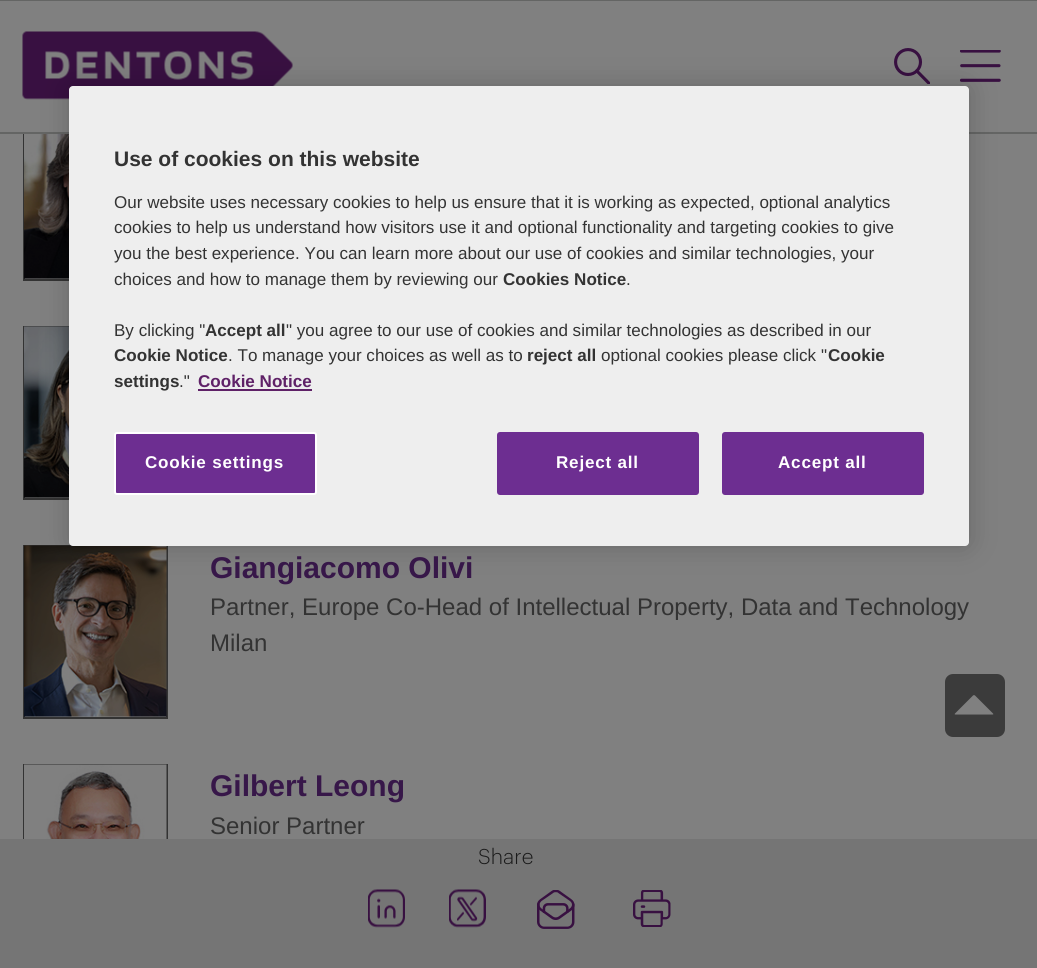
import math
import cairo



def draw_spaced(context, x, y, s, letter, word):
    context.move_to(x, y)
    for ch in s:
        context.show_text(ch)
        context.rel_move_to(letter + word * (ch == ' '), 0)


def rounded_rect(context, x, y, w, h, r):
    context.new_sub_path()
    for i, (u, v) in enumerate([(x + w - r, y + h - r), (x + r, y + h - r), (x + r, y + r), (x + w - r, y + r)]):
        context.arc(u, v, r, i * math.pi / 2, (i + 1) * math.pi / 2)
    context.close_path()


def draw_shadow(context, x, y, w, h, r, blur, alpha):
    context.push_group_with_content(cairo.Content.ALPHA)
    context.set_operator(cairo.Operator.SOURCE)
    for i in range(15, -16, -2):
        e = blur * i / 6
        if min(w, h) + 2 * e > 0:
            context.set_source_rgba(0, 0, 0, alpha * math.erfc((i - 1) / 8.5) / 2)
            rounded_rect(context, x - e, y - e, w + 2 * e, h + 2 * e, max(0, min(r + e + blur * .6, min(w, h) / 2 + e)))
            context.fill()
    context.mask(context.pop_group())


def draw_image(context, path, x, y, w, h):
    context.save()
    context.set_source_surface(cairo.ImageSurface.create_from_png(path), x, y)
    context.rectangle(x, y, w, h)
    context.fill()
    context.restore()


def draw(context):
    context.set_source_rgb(128 / 255, 128 / 255, 128 / 255)
    context.paint()
    context.rectangle(24, 108, 143, 172)
    context.set_source_rgb(51 / 255, 51 / 255, 51 / 255)
    context.stroke()
    context.set_source_rgb(128 / 255, 128 / 255, 128 / 255)
    context.rectangle(23, 107, 145, 25)
    context.fill()
    context.set_source_rgb(100 / 255, 101 / 255, 100 / 255)
    context.rectangle(0, 132, 1037, 2)
    context.fill()
    draw_image(context, "images/1.png", 894, 48, 36, 36)
    draw_image(context, "images/2.png", 960, 50, 41, 32)
    draw_image(context, "images/3.png", 22, 31, 271, 69)
    draw_image(context, "images/4.png", 24, 134, 45, 145)
    context.rectangle(24, 327, 143, 172)
    context.set_source_rgb(51 / 255, 51 / 255, 51 / 255)
    context.stroke()
    draw_image(context, "images/5.png", 24, 326, 45, 172)
    context.rectangle(24, 546, 143, 172)
    context.stroke()
    draw_image(context, "images/6.png", 24, 545, 143, 172)
    context.set_source_rgb(0, 0, 0)
    draw_shadow(context, 69, 86, 900, 460, 4, 13.5, 0.2)
    context.set_source_rgb(238 / 255, 238 / 255, 238 / 255)
    rounded_rect(context, 69, 86, 900, 460, 4)
    context.fill()
    context.set_source_rgb(95 / 255, 33 / 255, 103 / 255)
    context.rectangle(198, 389, 114, 2)
    context.fill()
    context.set_source_rgb(109 / 255, 46 / 255, 145 / 255)
    rounded_rect(context, 115, 433, 201, 61, 2)
    context.fill_preserve()
    context.set_source_rgb(1, 1, 1)
    context.stroke()
    context.set_source_rgb(109 / 255, 46 / 255, 145 / 255)
    rounded_rect(context, 498, 433, 200, 61, 2)
    context.fill_preserve()
    context.stroke()
    rounded_rect(context, 723, 433, 200, 61, 2)
    context.fill_preserve()
    context.stroke()
    context.set_source_rgb(100 / 255, 101 / 255, 100 / 255)
    context.rectangle(0, 0, 1037, 1)
    context.fill()
    context.rectangle(24, 765, 143, 172)
    context.set_source_rgb(51 / 255, 51 / 255, 51 / 255)
    context.stroke()
    draw_image(context, "images/7.png", 24, 764, 143, 75)
    context.set_source_rgb(117 / 255, 117 / 255, 117 / 255)
    context.rectangle(0, 839, 1037, 129)
    context.fill()
    draw_image(context, "images/8.png", 368, 889, 37, 39)
    draw_image(context, "images/9.png", 449, 889, 37, 39)
    draw_image(context, "images/10.png", 537, 890, 38, 39)
    draw_image(context, "images/11.png", 633, 890, 38, 37)
    context.set_source_rgb(59 / 255, 59 / 255, 59 / 255)
    rounded_rect(context, 945, 674, 60, 63, 8)
    context.fill()
    context.set_source_rgb(128 / 255, 128 / 255, 128 / 255)
    context.new_path()
    context.move_to(955.5, 714.5)
    context.curve_to(954.5, 714.5, 954.5, 714, 955, 713.5)
    context.line_to(973, 695.5)
    context.curve_to(973.5, 695, 974.5, 695, 975, 695.5)
    context.line_to(993, 713.5)
    context.curve_to(993.5, 714, 993.5, 714.5, 992.5, 714.5)
    context.close_path()
    context.fill()
    context.select_font_face("Liberation Sans", cairo.FontSlant.NORMAL, cairo.FontWeight.BOLD)
    context.set_font_size(21)
    context.set_source_rgb(51 / 255, 51 / 255, 51 / 255)
    context.move_to(114, 166)
    context.show_text("Use of cookies on this website")
    context.select_font_face("Liberation Sans")
    context.set_font_size(17.05)
    context.move_to(114, 208)
    context.show_text("Our website uses necessary cookies to help us ensure that it is working as expected, optional analytics")
    context.move_to(114, 233)
    context.show_text("cookies to help us understand how visitors use it and optional functionality and targeting cookies to give")
    context.move_to(114, 259)
    context.show_text("you the best experience. You can learn more about our use of cookies and similar technologies, your")
    context.move_to(114, 285)
    context.show_text("choices and how to manage them by reviewing our")
    context.select_font_face("Liberation Sans", cairo.FontSlant.NORMAL, cairo.FontWeight.BOLD)
    context.move_to(503, 285)
    context.show_text("Cookies Notice")
    context.select_font_face("Liberation Sans")
    context.move_to(626, 285)
    context.show_text(".")
    context.move_to(114, 336)
    context.show_text("By clicking \"")
    context.select_font_face("Liberation Sans", cairo.FontSlant.NORMAL, cairo.FontWeight.BOLD)
    context.move_to(205, 336)
    context.show_text("Accept all")
    context.select_font_face("Liberation Sans")
    context.move_to(286, 336)
    context.show_text("\" you agree to our use of cookies and similar technologies as described in our")
    context.select_font_face("Liberation Sans", cairo.FontSlant.NORMAL, cairo.FontWeight.BOLD)
    context.move_to(114, 361)
    context.show_text("Cookie Notice")
    context.select_font_face("Liberation Sans")
    context.move_to(228, 361)
    context.show_text(". To manage your choices as well as to")
    context.select_font_face("Liberation Sans", cairo.FontSlant.NORMAL, cairo.FontWeight.BOLD)
    context.move_to(527, 361)
    context.show_text("reject all")
    context.select_font_face("Liberation Sans")
    context.move_to(601, 361)
    context.show_text("optional cookies please click \"")
    context.select_font_face("Liberation Sans", cairo.FontSlant.NORMAL, cairo.FontWeight.BOLD)
    context.move_to(828, 361)
    context.show_text("Cookie")
    context.move_to(114, 387)
    context.show_text("settings")
    context.select_font_face("Liberation Sans")
    context.move_to(179, 387)
    context.show_text(".\"")
    context.select_font_face("Liberation Sans", cairo.FontSlant.NORMAL, cairo.FontWeight.BOLD)
    context.set_source_rgb(95 / 255, 33 / 255, 103 / 255)
    context.move_to(198, 387)
    context.show_text("Cookie Notice")
    context.set_source_rgb(1, 1, 1)
    draw_spaced(context, 145, 468, "Cookie settings", 0.8, 0)
    draw_spaced(context, 556, 468, "Reject all", 0.8, 0)
    draw_spaced(context, 778, 468, "Accept all", 0.8, 0)
    context.set_font_size(30)
    context.set_source_rgb(55 / 255, 23 / 255, 73 / 255)
    context.move_to(210, 578)
    context.show_text("Giangiacomo Olivi")
    context.select_font_face("Liberation Sans")
    context.set_font_size(24)
    context.set_source_rgb(51 / 255, 51 / 255, 51 / 255)
    context.move_to(210, 615)
    context.show_text("Partner, Europe Co-Head of Intellectual Property, Data and Technology")
    context.move_to(210, 651)
    context.show_text("Milan")
    context.select_font_face("Liberation Sans", cairo.FontSlant.NORMAL, cairo.FontWeight.BOLD)
    context.set_font_size(30)
    context.set_source_rgb(55 / 255, 23 / 255, 73 / 255)
    context.move_to(210, 796)
    context.show_text("Gilbert Leong")
    context.select_font_face("Liberation Sans")
    context.set_font_size(24)
    context.set_source_rgb(51 / 255, 51 / 255, 51 / 255)
    context.move_to(210, 834)
    context.show_text("Senior Partner")
    context.select_font_face("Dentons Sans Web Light")
    context.set_font_size(21)
    context.set_source_rgb(26 / 255, 26 / 255, 26 / 255)
    context.move_to(478, 864)
    context.show_text("Share")


surface = cairo.ImageSurface(cairo.Format.RGB24, 1037, 968)
context = cairo.Context(surface)
options = cairo.FontOptions()
options.set_hint_metrics(cairo.HintMetrics.OFF)
options.set_hint_style(cairo.HintStyle.NONE)
context.set_font_options(options)
context.set_miter_limit(4)
draw(context)
surface.write_to_png("out.png")
